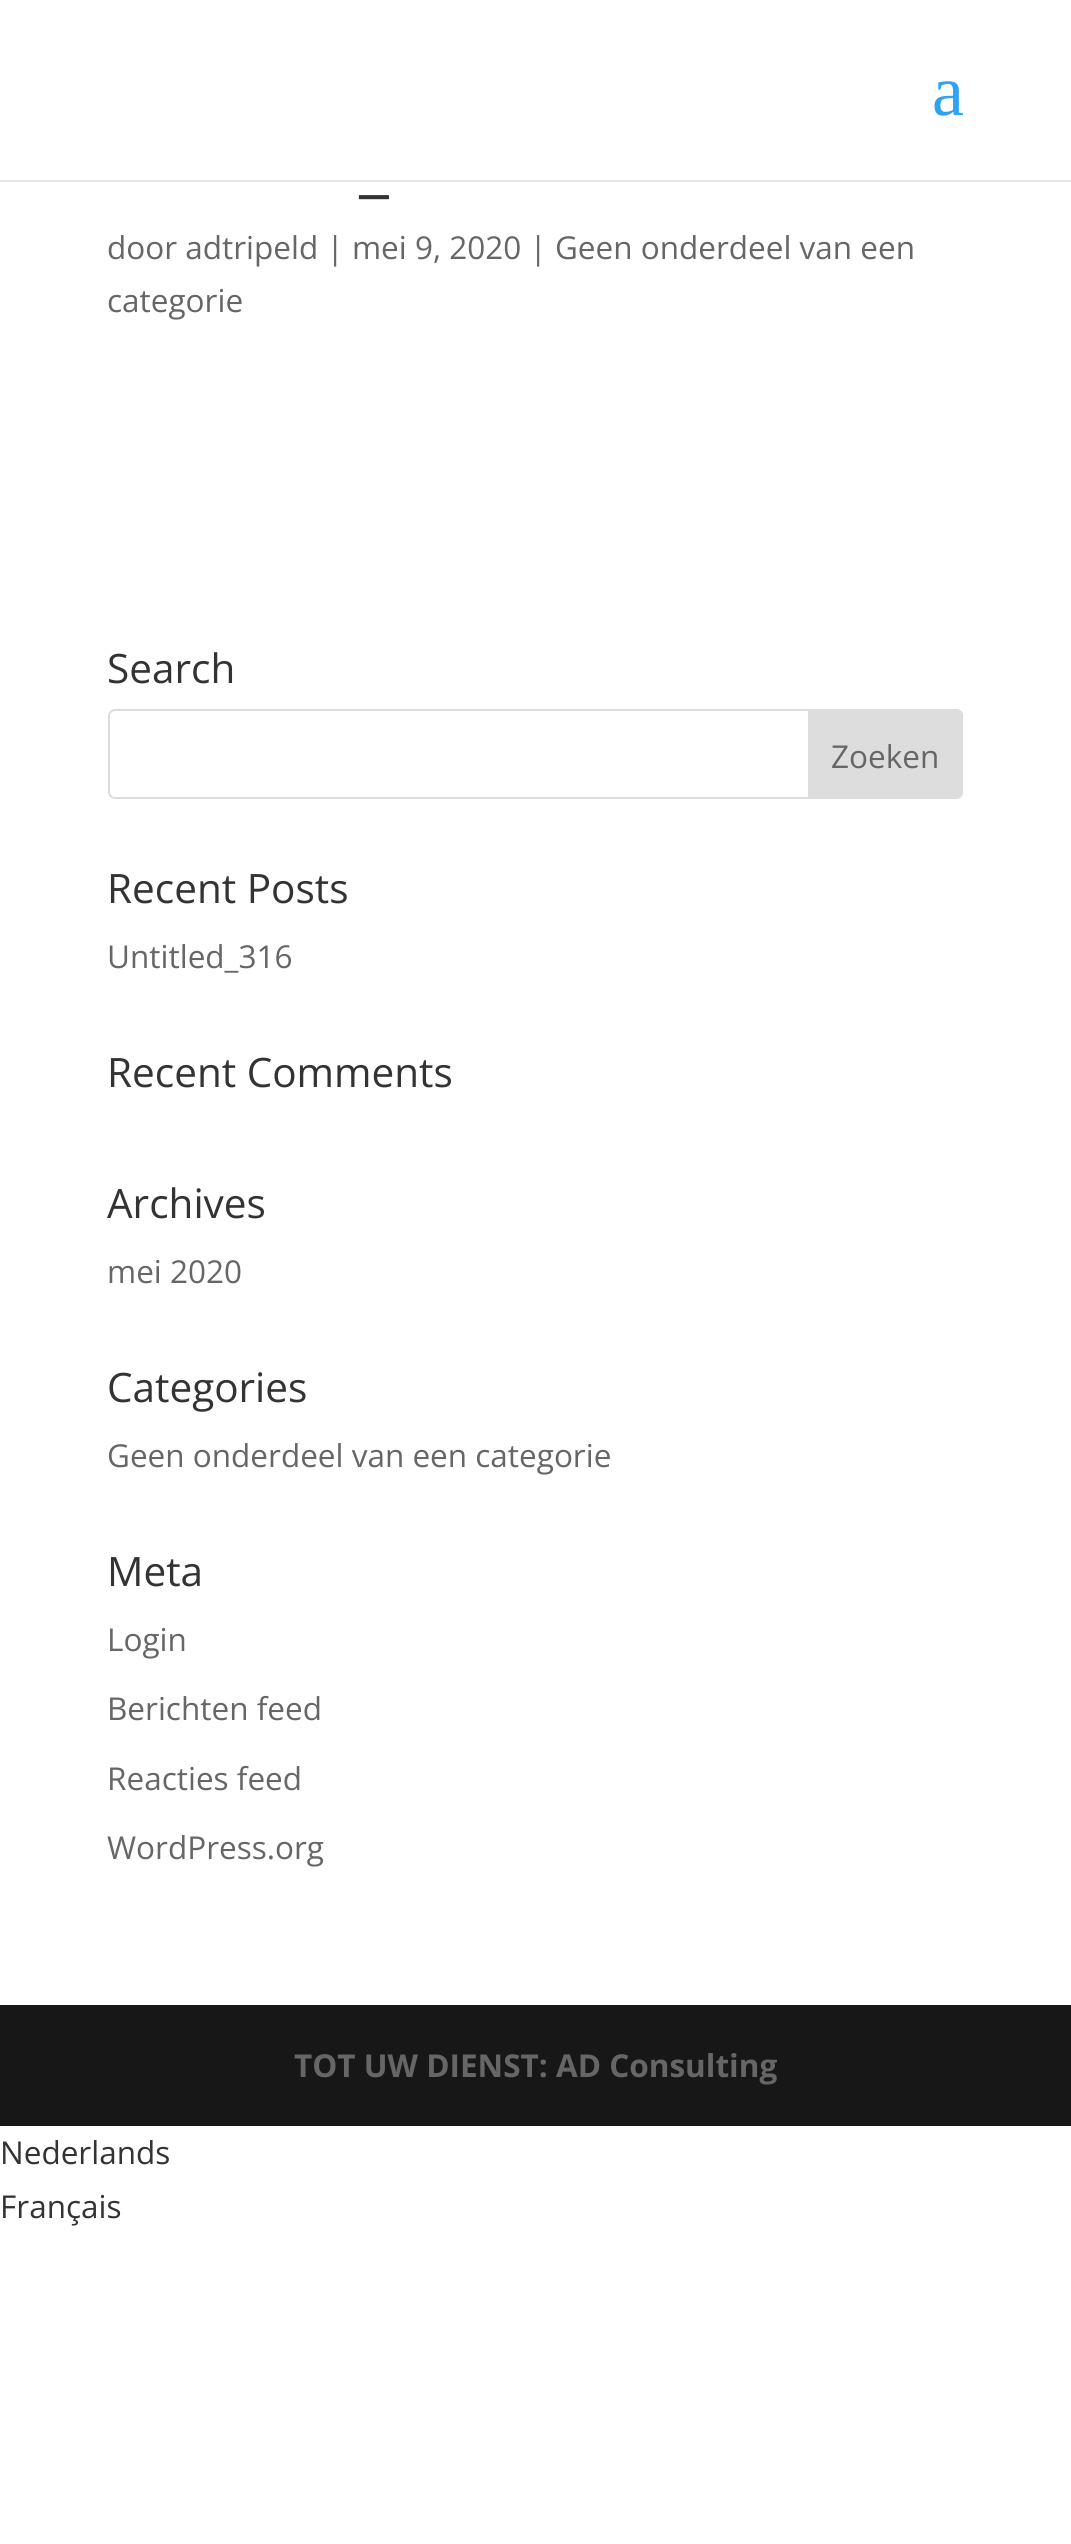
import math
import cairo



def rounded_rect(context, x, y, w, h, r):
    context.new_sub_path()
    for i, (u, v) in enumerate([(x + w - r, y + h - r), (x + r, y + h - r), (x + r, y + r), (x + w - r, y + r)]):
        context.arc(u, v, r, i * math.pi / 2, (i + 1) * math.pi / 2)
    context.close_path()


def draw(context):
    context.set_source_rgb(1, 1, 1)
    context.paint()
    context.set_source_rgba(0, 0, 0, 0.1)
    context.rectangle(0, 180, 1071, 2)
    context.fill()
    rounded_rect(context, 109, 710, 853, 88, 6)
    context.set_source_rgb(221 / 255, 221 / 255, 221 / 255)
    context.stroke()
    context.new_path()
    context.move_to(809, 710)
    context.line_to(956, 710)
    context.curve_to(959.5, 710, 962, 712.5, 962, 716)
    context.line_to(962, 792)
    context.curve_to(962, 795.5, 959.5, 798, 956, 798)
    context.line_to(809, 798)
    context.close_path()
    context.fill_preserve()
    context.stroke()
    context.set_source_rgb(23 / 255, 23 / 255, 23 / 255)
    context.rectangle(0, 2005, 1071, 121)
    context.fill()
    context.select_font_face("Liberation Serif")
    context.set_font_size(72)
    context.set_source_rgb(46 / 255, 163 / 255, 242 / 255)
    context.move_to(932, 115)
    context.show_text("a")
    context.select_font_face("Open Sans")
    context.set_font_size(68)
    context.set_source_rgb(51 / 255, 51 / 255, 51 / 255)
    context.move_to(359, 189)
    context.show_text("_")
    context.set_font_size(31.5)
    context.set_source_rgb(102 / 255, 102 / 255, 102 / 255)
    context.move_to(107, 259)
    context.show_text("door adtripeld | mei 9, 2020 | Geen onderdeel van een")
    context.move_to(107, 312)
    context.show_text("categorie")
    context.set_font_size(40.5)
    context.set_source_rgb(51 / 255, 51 / 255, 51 / 255)
    context.move_to(107, 683)
    context.show_text("Search")
    context.set_font_size(31.5)
    context.set_source_rgb(102 / 255, 102 / 255, 102 / 255)
    context.move_to(831, 768)
    context.show_text("Zoeken")
    context.set_font_size(40.5)
    context.set_source_rgb(51 / 255, 51 / 255, 51 / 255)
    context.move_to(107, 903)
    context.show_text("Recent Posts")
    context.set_font_size(31.5)
    context.set_source_rgb(102 / 255, 102 / 255, 102 / 255)
    context.move_to(107, 968)
    context.show_text("Untitled_316")
    context.set_font_size(40.5)
    context.set_source_rgb(51 / 255, 51 / 255, 51 / 255)
    context.move_to(107, 1087)
    context.show_text("Recent Comments")
    context.move_to(107, 1218)
    context.show_text("Archives")
    context.set_font_size(31.5)
    context.set_source_rgb(102 / 255, 102 / 255, 102 / 255)
    context.move_to(107, 1283)
    context.show_text("mei 2020")
    context.set_font_size(40.5)
    context.set_source_rgb(51 / 255, 51 / 255, 51 / 255)
    context.move_to(107, 1402)
    context.show_text("Categories")
    context.set_font_size(31.5)
    context.set_source_rgb(102 / 255, 102 / 255, 102 / 255)
    context.move_to(107, 1467)
    context.show_text("Geen onderdeel van een categorie")
    context.set_font_size(40.5)
    context.set_source_rgb(51 / 255, 51 / 255, 51 / 255)
    context.move_to(107, 1586)
    context.show_text("Meta")
    context.set_font_size(31.5)
    context.set_source_rgb(102 / 255, 102 / 255, 102 / 255)
    context.move_to(107, 1651)
    context.show_text("Login")
    context.move_to(107, 1720)
    context.show_text("Berichten feed")
    context.move_to(107, 1790)
    context.show_text("Reacties feed")
    context.move_to(107, 1859)
    context.show_text("WordPress.org")
    context.select_font_face("Open Sans", cairo.FontSlant.NORMAL, cairo.FontWeight.BOLD)
    context.move_to(294, 2077)
    context.show_text("TOT UW DIENST: AD Consulting")
    context.select_font_face("Open Sans")
    context.set_source_rgb(51 / 255, 51 / 255, 51 / 255)
    context.move_to(0, 2164)
    context.show_text("Nederlands")
    context.move_to(0, 2218)
    context.show_text("Français")


surface = cairo.ImageSurface(cairo.Format.RGB24, 1071, 2544)
context = cairo.Context(surface)
options = cairo.FontOptions()
options.set_hint_metrics(cairo.HintMetrics.OFF)
options.set_hint_style(cairo.HintStyle.NONE)
context.set_font_options(options)
context.set_miter_limit(4)
draw(context)
surface.write_to_png("out.png")
